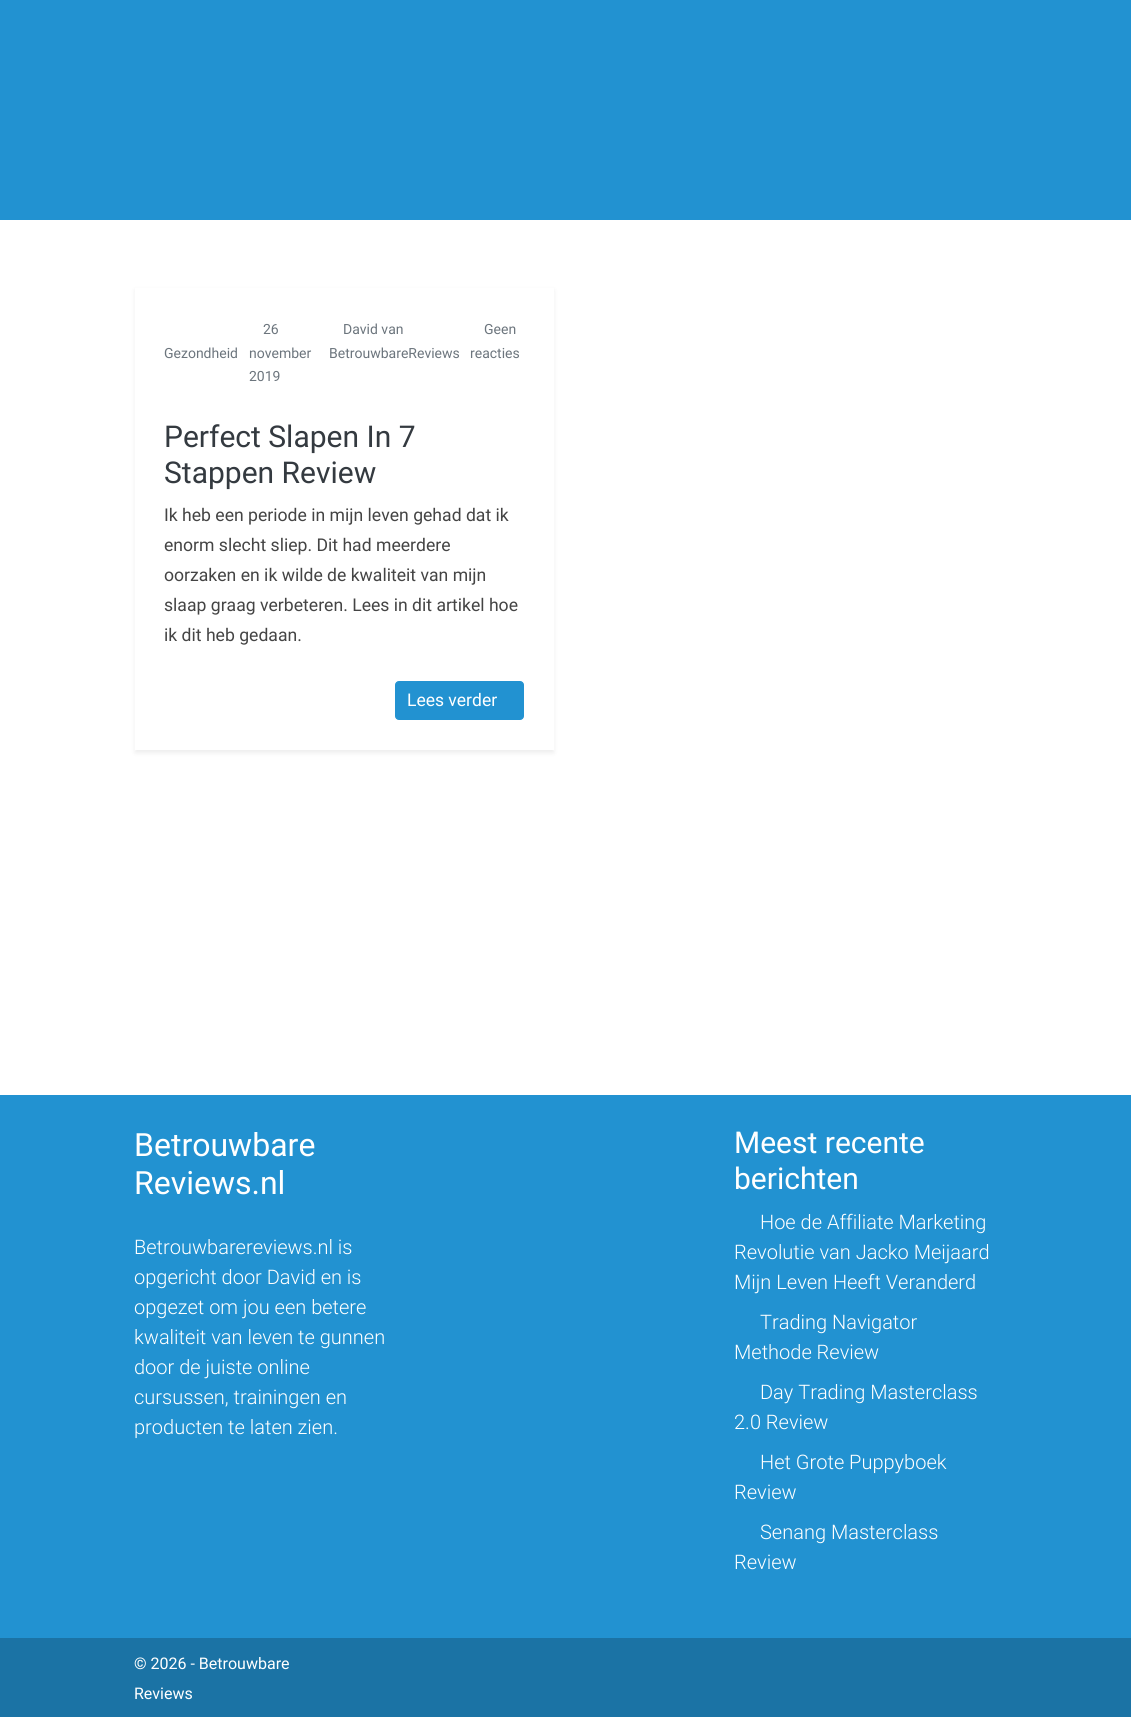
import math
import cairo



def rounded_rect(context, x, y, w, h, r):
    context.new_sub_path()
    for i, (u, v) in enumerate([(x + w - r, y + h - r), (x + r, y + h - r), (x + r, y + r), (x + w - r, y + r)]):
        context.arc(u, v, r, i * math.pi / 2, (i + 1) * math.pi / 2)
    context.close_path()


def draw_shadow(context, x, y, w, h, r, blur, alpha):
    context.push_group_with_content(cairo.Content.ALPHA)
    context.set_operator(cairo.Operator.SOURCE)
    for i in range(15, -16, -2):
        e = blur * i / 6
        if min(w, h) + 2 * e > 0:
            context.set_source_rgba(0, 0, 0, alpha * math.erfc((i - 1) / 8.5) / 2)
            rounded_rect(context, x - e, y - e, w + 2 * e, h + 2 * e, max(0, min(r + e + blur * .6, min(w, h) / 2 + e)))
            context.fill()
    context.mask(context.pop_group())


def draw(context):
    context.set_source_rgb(1, 1, 1)
    context.paint()
    context.set_source_rgb(34 / 255, 146 / 255, 209 / 255)
    context.rectangle(0, 0, 1131, 220)
    context.fill()
    context.save()
    context.set_fill_rule(cairo.FillRule.EVEN_ODD)
    context.new_path()
    context.move_to(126, 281)
    context.line_to(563, 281)
    context.line_to(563, 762)
    context.line_to(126, 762)
    context.close_path()
    context.move_to(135, 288)
    context.line_to(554, 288)
    context.line_to(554, 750)
    context.line_to(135, 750)
    context.close_path()
    context.clip()
    context.set_source_rgb(0, 0, 0)
    draw_shadow(context, 135, 290, 419, 463, 0, 2.5, 0.07)
    context.restore()
    rounded_rect(context, 395.5, 681.5, 128, 38, 3.5)
    context.fill_preserve()
    context.set_line_width(1)
    context.stroke()
    context.rectangle(0, 1095, 1131, 543)
    context.fill()
    context.set_source_rgb(27 / 255, 115 / 255, 165 / 255)
    context.rectangle(0, 1638, 1131, 79)
    context.fill()
    context.select_font_face("Roboto")
    context.set_font_size(14)
    context.set_source_rgb(108 / 255, 117 / 255, 125 / 255)
    context.move_to(164, 358)
    context.show_text("Gezondheid")
    context.move_to(263, 334)
    context.show_text("26")
    context.move_to(249, 358)
    context.show_text("november")
    context.move_to(249, 381)
    context.show_text("2019")
    context.move_to(343, 334)
    context.show_text("David van")
    context.move_to(329, 358)
    context.show_text("BetrouwbareReviews")
    context.move_to(484, 334)
    context.show_text("Geen")
    context.move_to(470, 358)
    context.show_text("reacties")
    context.set_font_size(30)
    context.set_source_rgb(52 / 255, 58 / 255, 64 / 255)
    context.move_to(164, 447)
    context.show_text("Perfect Slapen In 7")
    context.move_to(164, 483)
    context.show_text("Stappen Review")
    context.set_font_size(17.6)
    context.set_source_rgb(68 / 255, 68 / 255, 68 / 255)
    context.move_to(164, 521)
    context.show_text("Ik heb een periode in mijn leven gehad dat ik")
    context.move_to(164, 551)
    context.show_text("enorm slecht sliep. Dit had meerdere")
    context.move_to(164, 581)
    context.show_text("oorzaken en ik wilde de kwaliteit van mijn")
    context.move_to(164, 611)
    context.show_text("slaap graag verbeteren. Lees in dit artikel hoe")
    context.move_to(164, 641)
    context.show_text("ik dit heb gedaan.")
    context.set_font_size(17.5)
    context.set_source_rgb(1, 1, 1)
    context.move_to(407, 706)
    context.show_text("Lees verder")
    context.set_font_size(32)
    context.move_to(134, 1156)
    context.show_text("Betrouwbare")
    context.move_to(134, 1194)
    context.show_text("Reviews.nl")
    context.select_font_face("Roboto Light")
    context.set_font_size(20)
    context.move_to(134, 1254)
    context.show_text("Betrouwbarereviews.nl is")
    context.move_to(134, 1284)
    context.show_text("opgericht door David en is")
    context.move_to(134, 1314)
    context.show_text("opgezet om jou een betere")
    context.move_to(134, 1344)
    context.show_text("kwaliteit van leven te gunnen")
    context.move_to(134, 1374)
    context.show_text("door de juiste online")
    context.move_to(134, 1404)
    context.show_text("cursussen, trainingen en")
    context.move_to(134, 1434)
    context.show_text("producten te laten zien.")
    context.select_font_face("Roboto")
    context.set_font_size(30)
    context.move_to(734, 1153)
    context.show_text("Meest recente")
    context.move_to(734, 1189)
    context.show_text("berichten")
    context.select_font_face("Roboto Light")
    context.set_font_size(20)
    context.move_to(760, 1229)
    context.show_text("Hoe de Affiliate Marketing")
    context.move_to(734, 1259)
    context.show_text("Revolutie van Jacko Meijaard")
    context.move_to(734, 1289)
    context.show_text("Mijn Leven Heeft Veranderd")
    context.move_to(760, 1329)
    context.show_text("Trading Navigator")
    context.move_to(734, 1359)
    context.show_text("Methode Review")
    context.move_to(760, 1399)
    context.show_text("Day Trading Masterclass")
    context.move_to(734, 1429)
    context.show_text("2.0 Review")
    context.move_to(760, 1469)
    context.show_text("Het Grote Puppyboek")
    context.move_to(734, 1499)
    context.show_text("Review")
    context.move_to(760, 1539)
    context.show_text("Senang Masterclass")
    context.move_to(734, 1569)
    context.show_text("Review")
    context.select_font_face("Roboto")
    context.set_font_size(16)
    context.move_to(134, 1669)
    context.show_text("© 2026 - Betrouwbare")
    context.move_to(134, 1699)
    context.show_text("Reviews")


surface = cairo.ImageSurface(cairo.Format.RGB24, 1131, 1717)
context = cairo.Context(surface)
options = cairo.FontOptions()
options.set_hint_metrics(cairo.HintMetrics.OFF)
options.set_hint_style(cairo.HintStyle.NONE)
context.set_font_options(options)
context.set_miter_limit(4)
draw(context)
surface.write_to_png("out.png")
